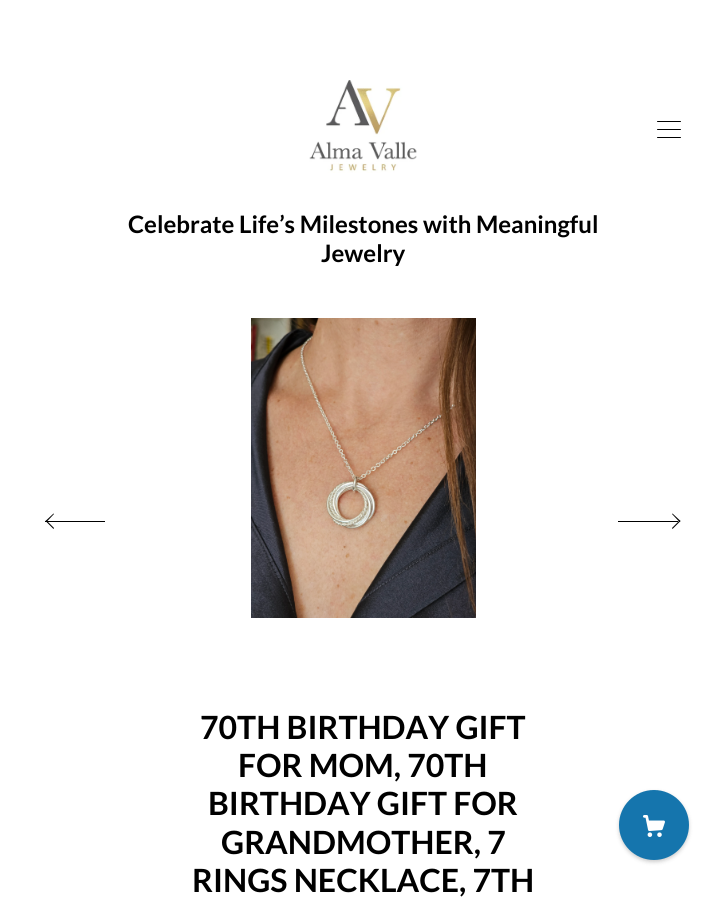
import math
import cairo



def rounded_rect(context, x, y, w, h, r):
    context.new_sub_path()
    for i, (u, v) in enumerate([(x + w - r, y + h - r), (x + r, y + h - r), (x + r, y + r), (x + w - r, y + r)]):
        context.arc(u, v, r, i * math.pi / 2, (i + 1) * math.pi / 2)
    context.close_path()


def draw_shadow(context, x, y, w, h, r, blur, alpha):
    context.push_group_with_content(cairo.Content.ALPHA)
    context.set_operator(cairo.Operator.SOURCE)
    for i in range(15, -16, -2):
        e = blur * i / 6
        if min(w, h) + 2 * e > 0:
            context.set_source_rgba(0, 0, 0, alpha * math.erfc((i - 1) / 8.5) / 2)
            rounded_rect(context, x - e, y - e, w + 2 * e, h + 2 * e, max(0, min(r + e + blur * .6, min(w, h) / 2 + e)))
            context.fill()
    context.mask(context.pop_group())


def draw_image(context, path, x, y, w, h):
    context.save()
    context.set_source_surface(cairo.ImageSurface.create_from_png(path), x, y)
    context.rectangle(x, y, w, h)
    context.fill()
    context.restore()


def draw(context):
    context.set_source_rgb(1, 1, 1)
    context.paint()
    draw_image(context, "images/1.png", 309, 80, 108, 93)
    context.set_source_rgb(0, 0, 0)
    rounded_rect(context, 657, 121, 24, 1, 0.5)
    context.fill()
    rounded_rect(context, 657, 129, 24, 1, 0.5)
    context.fill()
    rounded_rect(context, 657, 137, 24, 1, 0.5)
    context.fill()
    draw_image(context, "images/2.png", 251, 318, 225, 300)
    context.new_path()
    context.move_to(54, 528)
    context.line_to(53.5, 529)
    context.line_to(45.5, 521)
    context.line_to(46.5, 520.5)
    context.close_path()
    context.fill()
    context.new_path()
    context.move_to(54, 514)
    context.line_to(46.5, 522)
    context.line_to(45.5, 521)
    context.line_to(53.5, 513.5)
    context.close_path()
    context.fill()
    context.rectangle(45, 521, 60, 1)
    context.fill()
    context.new_path()
    context.move_to(672, 514)
    context.line_to(672.5, 513.5)
    context.line_to(680.5, 521)
    context.line_to(679.5, 522)
    context.close_path()
    context.fill()
    context.new_path()
    context.move_to(672, 528)
    context.line_to(679.5, 520.5)
    context.line_to(680.5, 521)
    context.line_to(672.5, 529)
    context.close_path()
    context.fill()
    context.rectangle(618, 521, 60, 1)
    context.fill()
    context.set_source_rgb(0, 0, 0)
    draw_shadow(context, 619, 792, 70, 70, 35, 2, 0.2)
    context.set_source_rgb(21 / 255, 117 / 255, 173 / 255)
    context.arc(654, 825, 35, 0, 2 * math.pi)
    context.fill()
    draw_image(context, "images/3.png", 643, 815, 22, 22)
    context.select_font_face("Lato", cairo.FontSlant.NORMAL, cairo.FontWeight.BOLD)
    context.set_font_size(24)
    context.set_source_rgb(0, 0, 0)
    context.move_to(128, 233)
    context.show_text("Celebrate Life’s Milestones with Meaningful")
    context.move_to(321, 262)
    context.show_text("Jewelry")
    context.set_font_size(32)
    context.move_to(200, 739)
    context.show_text("70TH BIRTHDAY GIFT")
    context.move_to(238, 777)
    context.show_text("FOR MOM, 70TH")
    context.move_to(208, 815)
    context.show_text("BIRTHDAY GIFT FOR")
    context.move_to(221, 854)
    context.show_text("GRANDMOTHER, 7")
    context.move_to(192, 892)
    context.show_text("RINGS NECKLACE, 7TH")


surface = cairo.ImageSurface(cairo.Format.RGB24, 726, 905)
context = cairo.Context(surface)
options = cairo.FontOptions()
options.set_hint_metrics(cairo.HintMetrics.OFF)
options.set_hint_style(cairo.HintStyle.NONE)
context.set_font_options(options)
context.set_miter_limit(4)
draw(context)
surface.write_to_png("out.png")
